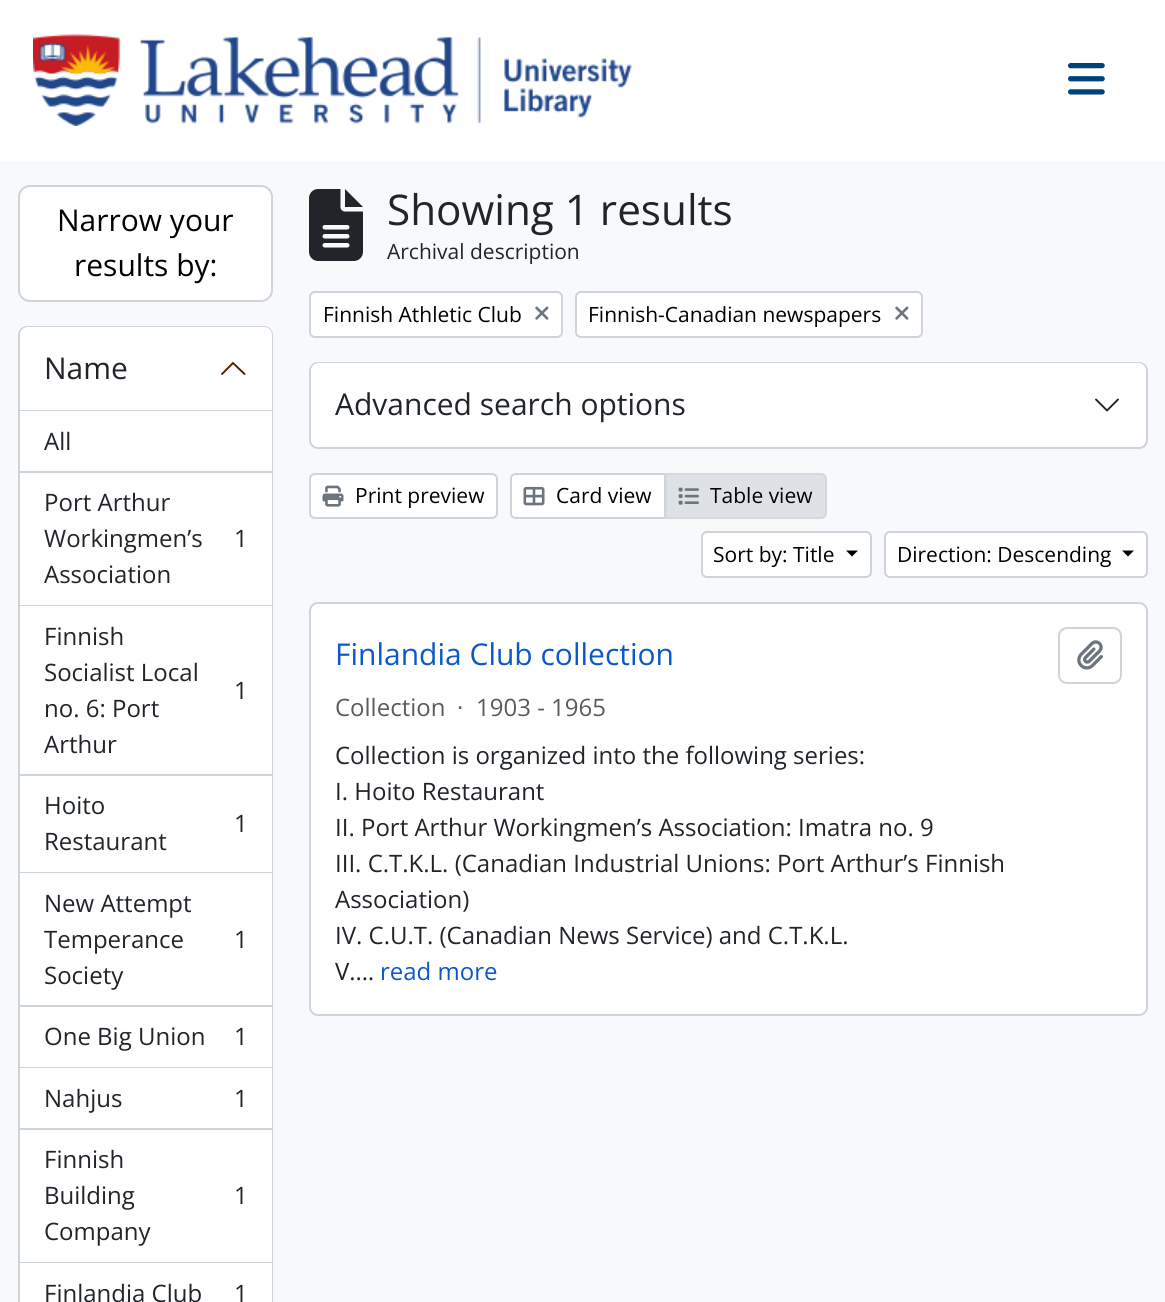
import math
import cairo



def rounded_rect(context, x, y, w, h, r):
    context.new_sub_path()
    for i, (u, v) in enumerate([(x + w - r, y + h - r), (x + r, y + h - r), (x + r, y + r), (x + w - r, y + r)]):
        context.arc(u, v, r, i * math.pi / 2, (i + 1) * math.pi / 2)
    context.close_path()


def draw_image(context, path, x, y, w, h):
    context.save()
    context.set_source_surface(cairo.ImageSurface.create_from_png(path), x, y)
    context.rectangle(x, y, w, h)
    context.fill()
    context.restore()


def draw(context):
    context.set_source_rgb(248 / 255, 249 / 255, 250 / 255)
    context.paint()
    context.set_source_rgb(1, 1, 1)
    context.rectangle(0, 0, 1165, 161)
    context.fill()
    draw_image(context, "images/1.png", 33, 34, 599, 92)
    draw_image(context, "images/2.png", 1068, 63, 37, 32)
    rounded_rect(context, 19, 186, 253, 115, 11)
    context.fill_preserve()
    context.set_source_rgb(206 / 255, 212 / 255, 218 / 255)
    context.stroke()
    rounded_rect(context, 19, 327, 253, 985, 8)
    context.stroke()
    context.set_source_rgb(1, 1, 1)
    context.new_path()
    context.move_to(28, 327)
    context.line_to(264, 327)
    context.curve_to(268.5, 327, 272, 330.5, 272, 335)
    context.line_to(272, 411)
    context.line_to(20, 411)
    context.line_to(20, 335)
    context.curve_to(20, 330.5, 23.5, 327, 28, 327)
    context.close_path()
    context.fill()
    context.set_source_rgb(206 / 255, 212 / 255, 218 / 255)
    context.rectangle(20, 410, 252, 1)
    context.fill()
    context.new_path()
    context.move_to(244.5, 374)
    context.line_to(233, 363)
    context.line_to(222, 374)
    context.set_source_rgb(78 / 255, 31 / 255, 0)
    context.set_line_width(1.9)
    context.set_line_cap(cairo.LineCap.ROUND)
    context.set_line_join(cairo.LineJoin.ROUND)
    context.stroke()
    context.set_source_rgb(1, 1, 1)
    context.rectangle(20, 411, 252, 60)
    context.fill()
    context.set_source_rgb(206 / 255, 212 / 255, 218 / 255)
    context.rectangle(20, 471, 252, 2)
    context.fill()
    context.set_source_rgb(1, 1, 1)
    context.rectangle(20, 473, 252, 132)
    context.fill()
    context.set_source_rgb(206 / 255, 212 / 255, 218 / 255)
    context.rectangle(20, 605, 252, 1)
    context.fill()
    context.set_source_rgb(1, 1, 1)
    context.rectangle(20, 606, 252, 168)
    context.fill()
    context.set_source_rgb(206 / 255, 212 / 255, 218 / 255)
    context.rectangle(20, 774, 252, 2)
    context.fill()
    context.set_source_rgb(1, 1, 1)
    context.rectangle(20, 776, 252, 96)
    context.fill()
    context.set_source_rgb(206 / 255, 212 / 255, 218 / 255)
    context.rectangle(20, 872, 252, 1)
    context.fill()
    context.set_source_rgb(1, 1, 1)
    context.rectangle(20, 873, 252, 132)
    context.fill()
    context.set_source_rgb(206 / 255, 212 / 255, 218 / 255)
    context.rectangle(20, 1005, 252, 2)
    context.fill()
    context.set_source_rgb(1, 1, 1)
    context.rectangle(20, 1007, 252, 60)
    context.fill()
    context.set_source_rgb(206 / 255, 212 / 255, 218 / 255)
    context.rectangle(20, 1067, 252, 1)
    context.fill()
    context.set_source_rgb(1, 1, 1)
    context.rectangle(20, 1068, 252, 60)
    context.fill()
    context.set_source_rgb(206 / 255, 212 / 255, 218 / 255)
    context.rectangle(20, 1128, 252, 2)
    context.fill()
    context.set_source_rgb(1, 1, 1)
    context.rectangle(20, 1130, 252, 132)
    context.fill()
    context.set_source_rgb(206 / 255, 212 / 255, 218 / 255)
    context.rectangle(20, 1262, 252, 1)
    context.fill()
    context.set_source_rgb(1, 1, 1)
    context.rectangle(20, 1263, 252, 39)
    context.fill()
    draw_image(context, "images/3.png", 309, 189, 54, 72)
    rounded_rect(context, 310, 292, 252, 45, 5)
    context.fill_preserve()
    context.set_source_rgb(206 / 255, 212 / 255, 218 / 255)
    context.set_line_width(2)
    context.set_line_cap(cairo.LineCap.BUTT)
    context.set_line_join(cairo.LineJoin.MITER)
    context.stroke()
    draw_image(context, "images/4.png", 535, 306, 14, 14)
    context.set_source_rgb(1, 1, 1)
    rounded_rect(context, 576, 292, 346, 45, 5)
    context.fill_preserve()
    context.set_source_rgb(206 / 255, 212 / 255, 218 / 255)
    context.stroke()
    draw_image(context, "images/4.png", 895, 306, 14, 14)
    context.set_source_rgb(1, 1, 1)
    rounded_rect(context, 310, 363, 837, 85, 8)
    context.fill_preserve()
    context.set_source_rgb(206 / 255, 212 / 255, 218 / 255)
    context.stroke()
    context.set_source_rgb(1, 1, 1)
    rounded_rect(context, 311, 363, 835, 84, 8)
    context.fill()
    context.new_path()
    context.move_to(1096, 399.5)
    context.line_to(1107, 410.5)
    context.line_to(1118, 399.5)
    context.set_source_rgb(33 / 255, 37 / 255, 41 / 255)
    context.set_line_width(1.9)
    context.set_line_cap(cairo.LineCap.ROUND)
    context.set_line_join(cairo.LineJoin.ROUND)
    context.stroke()
    context.set_source_rgb(1, 1, 1)
    rounded_rect(context, 310, 474, 187, 44, 5)
    context.fill_preserve()
    context.set_source_rgb(206 / 255, 212 / 255, 218 / 255)
    context.set_line_width(2)
    context.set_line_cap(cairo.LineCap.BUTT)
    context.set_line_join(cairo.LineJoin.MITER)
    context.stroke()
    draw_image(context, "images/5.png", 322, 485, 22, 22)
    context.set_source_rgb(1, 1, 1)
    context.new_path()
    context.move_to(516, 474)
    context.line_to(665, 474)
    context.line_to(665, 518)
    context.line_to(516, 518)
    context.curve_to(513, 518, 511, 516, 511, 513)
    context.line_to(511, 479)
    context.curve_to(511, 476, 513, 474, 516, 474)
    context.close_path()
    context.fill_preserve()
    context.set_source_rgb(206 / 255, 212 / 255, 218 / 255)
    context.stroke()
    draw_image(context, "images/6.png", 523, 486, 22, 20)
    context.set_source_rgb(222 / 255, 226 / 255, 230 / 255)
    context.new_path()
    context.move_to(666, 474)
    context.line_to(821, 474)
    context.curve_to(824, 474, 826, 476, 826, 479)
    context.line_to(826, 513)
    context.curve_to(826, 516, 824, 518, 821, 518)
    context.line_to(666, 518)
    context.close_path()
    context.fill_preserve()
    context.set_source_rgb(211 / 255, 216 / 255, 222 / 255)
    context.stroke()
    draw_image(context, "images/7.png", 678, 487, 21, 18)
    context.set_source_rgb(1, 1, 1)
    rounded_rect(context, 702, 532, 169, 45, 5)
    context.fill_preserve()
    context.set_source_rgb(206 / 255, 212 / 255, 218 / 255)
    context.stroke()
    context.set_source_rgb(0, 0, 0)
    context.new_path()
    context.move_to(846, 550.5)
    context.line_to(858, 550.5)
    context.line_to(852, 556.5)
    context.close_path()
    context.fill()
    context.set_source_rgb(1, 1, 1)
    rounded_rect(context, 885, 532, 262, 45, 5)
    context.fill_preserve()
    context.set_source_rgb(206 / 255, 212 / 255, 218 / 255)
    context.stroke()
    context.set_source_rgb(0, 0, 0)
    context.new_path()
    context.move_to(1122, 550.5)
    context.line_to(1134, 550.5)
    context.line_to(1128, 556.5)
    context.close_path()
    context.fill()
    context.set_source_rgb(1, 1, 1)
    rounded_rect(context, 310, 603, 837, 412, 8)
    context.fill_preserve()
    context.set_source_rgb(206 / 255, 212 / 255, 218 / 255)
    context.stroke()
    rounded_rect(context, 1059, 628, 62, 55, 8)
    context.stroke()
    draw_image(context, "images/8.png", 1077, 640, 26, 30)
    context.select_font_face("Open Sans")
    context.set_font_size(30)
    context.set_source_rgb(0, 0, 0)
    context.move_to(57, 231)
    context.show_text("Narrow your")
    context.move_to(74, 276)
    context.show_text("results by:")
    context.set_source_rgb(33 / 255, 37 / 255, 41 / 255)
    context.move_to(44, 379)
    context.show_text("Name")
    context.set_font_size(24)
    context.move_to(44, 450)
    context.show_text("All")
    context.move_to(44, 511)
    context.show_text("Port Arthur")
    context.move_to(44, 547)
    context.show_text("Workingmen’s")
    context.move_to(234, 547)
    context.show_text("1")
    context.move_to(44, 583)
    context.show_text("Association")
    context.move_to(44, 645)
    context.show_text("Finnish")
    context.move_to(44, 681)
    context.show_text("Socialist Local")
    context.move_to(234, 699)
    context.show_text("1")
    context.move_to(44, 717)
    context.show_text("no. 6: Port")
    context.move_to(44, 753)
    context.show_text("Arthur")
    context.move_to(44, 814)
    context.show_text("Hoito")
    context.move_to(234, 832)
    context.show_text("1")
    context.move_to(44, 850)
    context.show_text("Restaurant")
    context.move_to(44, 912)
    context.show_text("New Attempt")
    context.move_to(44, 948)
    context.show_text("Temperance")
    context.move_to(234, 948)
    context.show_text("1")
    context.move_to(44, 984)
    context.show_text("Society")
    context.move_to(44, 1045)
    context.show_text("One Big Union")
    context.move_to(234, 1045)
    context.show_text("1")
    context.move_to(44, 1107)
    context.show_text("Nahjus")
    context.move_to(234, 1107)
    context.show_text("1")
    context.move_to(44, 1168)
    context.show_text("Finnish")
    context.move_to(44, 1204)
    context.show_text("Building")
    context.move_to(234, 1204)
    context.show_text("1")
    context.move_to(44, 1240)
    context.show_text("Company")
    context.move_to(44, 1302)
    context.show_text("Finlandia Club")
    context.move_to(234, 1302)
    context.show_text("1")
    context.set_font_size(42.25)
    context.move_to(387, 225)
    context.show_text("Showing 1 results")
    context.set_font_size(21)
    context.move_to(387, 259)
    context.show_text("Archival description")
    context.set_source_rgb(0, 0, 0)
    context.move_to(323, 322)
    context.show_text("Finnish Athletic Club")
    context.move_to(588, 322)
    context.show_text("Finnish-Canadian newspapers")
    context.set_font_size(30)
    context.set_source_rgb(33 / 255, 37 / 255, 41 / 255)
    context.move_to(335, 415)
    context.show_text("Advanced search options")
    context.set_font_size(21)
    context.set_source_rgb(0, 0, 0)
    context.move_to(355, 503)
    context.show_text("Print preview")
    context.move_to(556, 503)
    context.show_text("Card view")
    context.move_to(710, 503)
    context.show_text("Table view")
    context.move_to(713, 562)
    context.show_text("Sort by: Title")
    context.move_to(897, 562)
    context.show_text("Direction: Descending")
    context.set_font_size(30)
    context.set_source_rgb(10 / 255, 88 / 255, 202 / 255)
    context.move_to(335, 665)
    context.show_text("Finlandia Club collection")
    context.set_font_size(24)
    context.set_source_rgb(89 / 255, 92 / 255, 95 / 255)
    context.move_to(335, 716)
    context.show_text("Collection")
    context.move_to(457, 716)
    context.show_text("·")
    context.move_to(476, 716)
    context.show_text("1903 - 1965")
    context.set_source_rgb(33 / 255, 37 / 255, 41 / 255)
    context.move_to(335, 764)
    context.show_text("Collection is organized into the following series:")
    context.move_to(335, 800)
    context.show_text("I. Hoito Restaurant")
    context.move_to(335, 836)
    context.show_text("II. Port Arthur Workingmen’s Association: Imatra no. 9")
    context.move_to(335, 872)
    context.show_text("III. C.T.K.L. (Canadian Industrial Unions: Port Arthur’s Finnish")
    context.move_to(335, 908)
    context.show_text("Association)")
    context.move_to(335, 944)
    context.show_text("IV. C.U.T. (Canadian News Service) and C.T.K.L.")
    context.move_to(335, 980)
    context.show_text("V.…")
    context.set_source_rgb(10 / 255, 88 / 255, 202 / 255)
    context.move_to(380, 980)
    context.show_text("read more")


surface = cairo.ImageSurface(cairo.Format.RGB24, 1165, 1302)
context = cairo.Context(surface)
options = cairo.FontOptions()
options.set_hint_metrics(cairo.HintMetrics.OFF)
options.set_hint_style(cairo.HintStyle.NONE)
context.set_font_options(options)
context.set_miter_limit(4)
draw(context)
surface.write_to_png("out.png")
